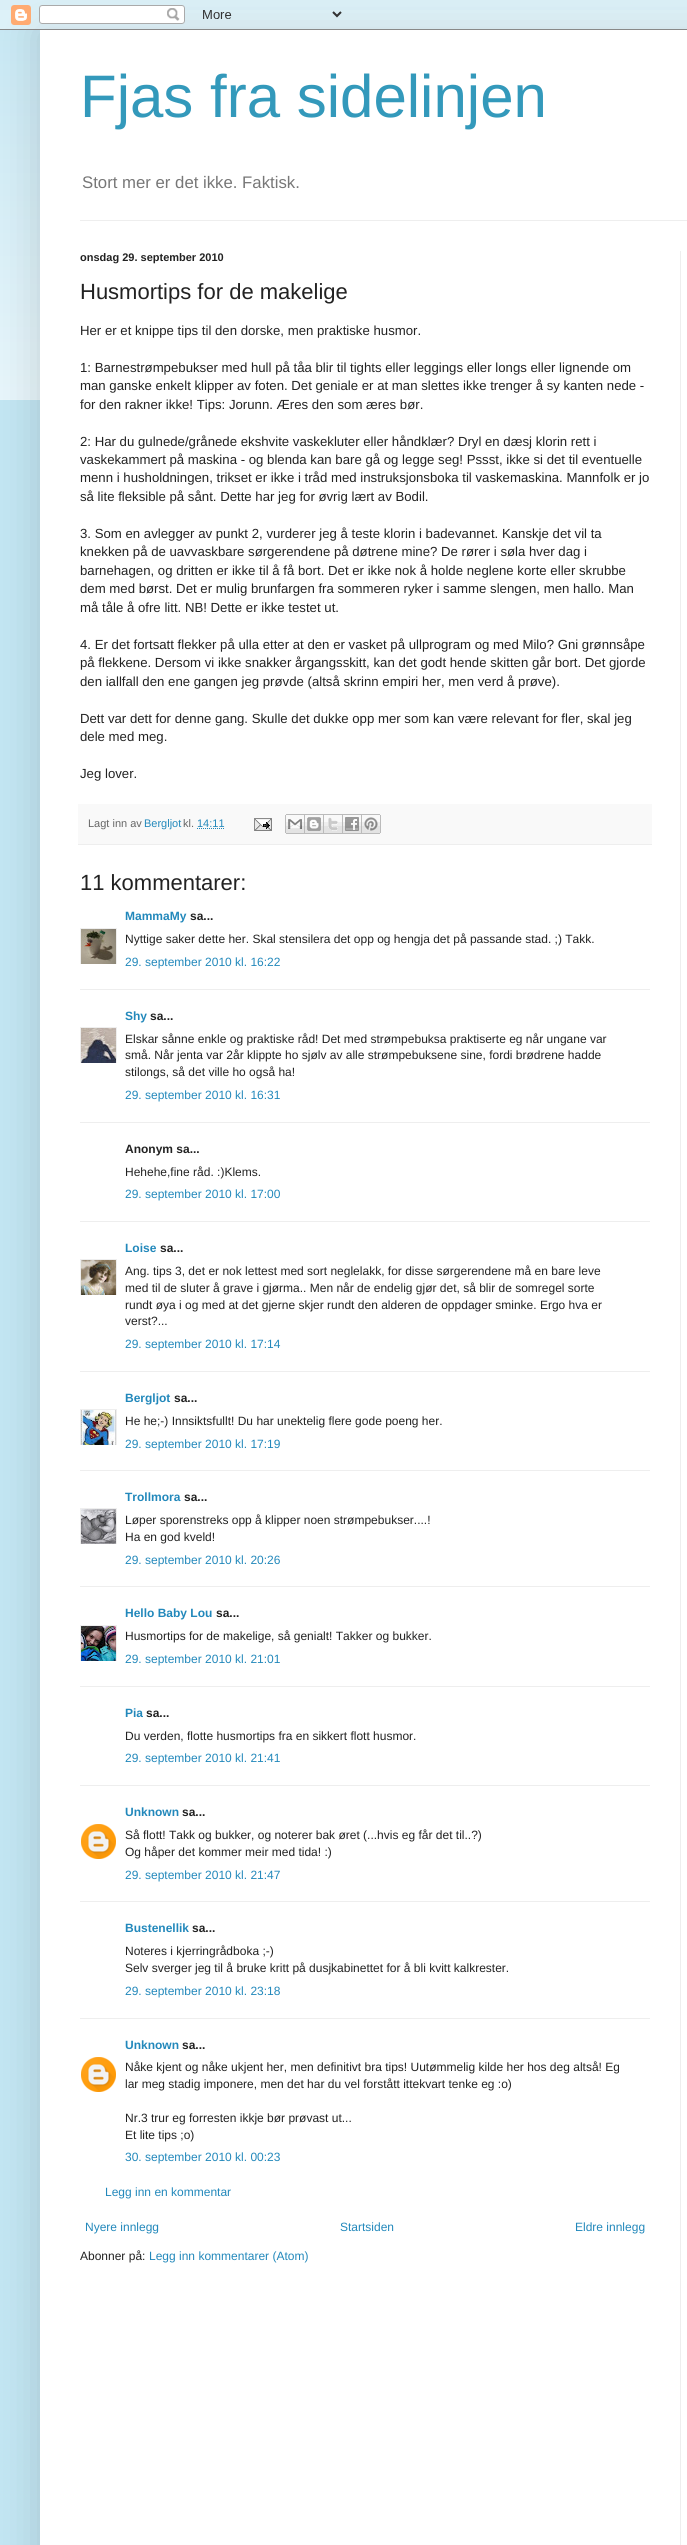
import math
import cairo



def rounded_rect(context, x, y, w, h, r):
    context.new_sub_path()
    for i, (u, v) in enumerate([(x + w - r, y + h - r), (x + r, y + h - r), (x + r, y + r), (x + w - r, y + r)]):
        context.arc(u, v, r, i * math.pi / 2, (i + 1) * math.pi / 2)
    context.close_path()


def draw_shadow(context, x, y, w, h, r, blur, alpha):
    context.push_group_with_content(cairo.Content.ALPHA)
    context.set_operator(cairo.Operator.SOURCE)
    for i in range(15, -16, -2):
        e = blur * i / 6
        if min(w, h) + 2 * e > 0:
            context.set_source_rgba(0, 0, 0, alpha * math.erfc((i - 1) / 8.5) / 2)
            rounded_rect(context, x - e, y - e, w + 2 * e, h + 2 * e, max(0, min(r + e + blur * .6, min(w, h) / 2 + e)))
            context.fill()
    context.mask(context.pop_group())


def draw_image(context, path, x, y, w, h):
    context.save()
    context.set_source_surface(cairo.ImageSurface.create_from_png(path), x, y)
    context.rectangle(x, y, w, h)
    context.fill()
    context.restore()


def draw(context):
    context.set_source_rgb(194 / 255, 229 / 255, 242 / 255)
    context.paint()
    draw_image(context, "images/2.png", 0, 10, 687, 390)
    context.set_source_rgb(0, 0, 0)
    draw_shadow(context, 40, 30, 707, 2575, 0, 20, 0.15)
    draw_image(context, "images/1.png", 0, 0, 687, 30)
    context.set_source_rgb(1, 1, 1)
    context.rectangle(40, 30, 647, 2515)
    context.fill()
    context.set_source_rgb(238 / 255, 238 / 255, 238 / 255)
    context.rectangle(80, 220, 607, 1)
    context.fill()
    context.set_source_rgb(249 / 255, 249 / 255, 249 / 255)
    context.rectangle(78, 804, 574, 40)
    context.fill()
    context.set_source_rgb(238 / 255, 238 / 255, 238 / 255)
    context.rectangle(78, 844, 574, 1)
    context.fill()
    context.new_path()
    context.move_to(197, 828.5)
    context.line_to(224.5, 828.5)
    context.set_source_rgb(34 / 255, 136 / 255, 187 / 255)
    context.set_line_width(1)
    context.set_dash([1, 1])
    context.stroke()
    draw_image(context, "images/3.png", 254, 818, 18, 13)
    draw_image(context, "images/4.png", 285, 814, 20, 20)
    draw_image(context, "images/5.png", 305, 814, 19, 20)
    draw_image(context, "images/6.png", 324, 814, 19, 20)
    draw_image(context, "images/7.png", 343, 814, 19, 20)
    draw_image(context, "images/8.png", 362, 814, 19, 20)
    context.save()
    context.rectangle(80, 928, 37, 36)
    context.clip()
    context.rectangle(80.5, 928.5, 36, 36)
    context.set_source_rgb(238 / 255, 238 / 255, 238 / 255)
    context.set_dash([])
    context.stroke()
    context.restore()
    draw_image(context, "images/9.png", 81, 929, 35, 35)
    context.set_source_rgb(238 / 255, 238 / 255, 238 / 255)
    context.rectangle(80, 989, 570, 1)
    context.fill()
    context.save()
    context.rectangle(80, 1027, 37, 36)
    context.clip()
    context.rectangle(80.5, 1027.5, 36, 36)
    context.set_dash([])
    context.stroke()
    context.restore()
    draw_image(context, "images/10.png", 81, 1028, 35, 35)
    context.rectangle(80, 1122, 570, 1)
    context.fill()
    context.rectangle(80, 1221, 570, 1)
    context.fill()
    context.save()
    context.rectangle(80, 1259, 37, 36)
    context.clip()
    context.rectangle(80.5, 1259.5, 36, 36)
    context.set_dash([])
    context.stroke()
    context.restore()
    draw_image(context, "images/11.png", 81, 1260, 35, 35)
    context.rectangle(80, 1371, 570, 1)
    context.fill()
    context.save()
    context.rectangle(80, 1409, 37, 36)
    context.clip()
    context.rectangle(80.5, 1409.5, 36, 36)
    context.set_dash([])
    context.stroke()
    context.restore()
    draw_image(context, "images/12.png", 81, 1410, 35, 35)
    context.rectangle(80, 1470, 570, 1)
    context.fill()
    context.save()
    context.rectangle(80, 1508, 37, 36)
    context.clip()
    context.rectangle(80.5, 1508.5, 36, 36)
    context.set_dash([])
    context.stroke()
    context.restore()
    draw_image(context, "images/13.png", 81, 1509, 35, 35)
    context.rectangle(80, 1586, 570, 1)
    context.fill()
    context.save()
    context.rectangle(80, 1625, 37, 36)
    context.clip()
    context.rectangle(80.5, 1625.5, 36, 36)
    context.set_dash([])
    context.stroke()
    context.restore()
    draw_image(context, "images/14.png", 81, 1626, 35, 35)
    context.rectangle(80, 1686, 570, 1)
    context.fill()
    context.rectangle(80, 1785, 570, 1)
    context.fill()
    draw_image(context, "images/15.png", 81, 1824, 35, 35)
    context.rectangle(80, 1901, 570, 1)
    context.fill()
    context.rectangle(80, 2018, 570, 1)
    context.fill()
    draw_image(context, "images/15.png", 81, 2057, 35, 35)
    context.rectangle(680, 251, 1, 2294)
    context.fill()
    context.select_font_face("Liberation Sans")
    context.set_font_size(60)
    context.set_source_rgb(51 / 255, 153 / 255, 187 / 255)
    context.move_to(80, 117)
    context.show_text("Fjas fra sidelinjen")
    context.set_font_size(16.75)
    context.set_source_rgb(119 / 255, 119 / 255, 119 / 255)
    context.move_to(82, 188)
    context.show_text("Stort mer er det ikke. Faktisk.")
    context.select_font_face("Liberation Sans", cairo.FontSlant.NORMAL, cairo.FontWeight.BOLD)
    context.set_font_size(11)
    context.set_source_rgb(34 / 255, 34 / 255, 34 / 255)
    context.move_to(80, 261)
    context.show_text("onsdag 29. september 2010")
    context.select_font_face("Liberation Sans")
    context.set_font_size(22)
    context.move_to(80, 299)
    context.show_text("Husmortips for de makelige")
    context.set_font_size(13.2)
    context.move_to(80, 335)
    context.show_text("Her er et knippe tips til den dorske, men praktiske husmor.")
    context.move_to(80, 372)
    context.show_text("1: Barnestrømpebukser med hull på tåa blir til tights eller leggings eller longs eller lignende om")
    context.move_to(80, 390)
    context.show_text("man ganske enkelt klipper av foten. Det geniale er at man slettes ikke trenger å sy kanten nede -")
    context.move_to(80, 409)
    context.show_text("for den rakner ikke! Tips: Jorunn. Æres den som æres bør.")
    context.move_to(80, 446)
    context.show_text("2: Har du gulnede/grånede ekshvite vaskekluter eller håndklær? Dryl en dæsj klorin rett i")
    context.move_to(80, 464)
    context.show_text("vaskekammert på maskina - og blenda kan bare gå og legge seg! Pssst, ikke si det til eventuelle")
    context.move_to(80, 482)
    context.show_text("menn i husholdningen, trikset er ikke i tråd med instruksjonsboka til vaskemaskina. Mannfolk er jo")
    context.move_to(80, 501)
    context.show_text("så lite fleksible på sånt. Dette har jeg for øvrig lært av Bodil.")
    context.move_to(80, 538)
    context.show_text("3. Som en avlegger av punkt 2, vurderer jeg å teste klorin i badevannet. Kanskje det vil ta")
    context.move_to(80, 556)
    context.show_text("knekken på de uavvaskbare sørgerendene på døtrene mine? De rører i søla hver dag i")
    context.move_to(80, 575)
    context.show_text("barnehagen, og dritten er ikke til å få bort. Det er ikke nok å holde neglene korte eller skrubbe")
    context.move_to(80, 593)
    context.show_text("dem med børst. Det er mulig brunfargen fra sommeren ryker i samme slengen, men hallo. Man")
    context.move_to(80, 612)
    context.show_text("må tåle å ofre litt. NB! Dette er ikke testet ut.")
    context.move_to(80, 649)
    context.show_text("4. Er det fortsatt flekker på ulla etter at den er vasket på ullprogram og med Milo? Gni grønnsåpe")
    context.move_to(80, 667)
    context.show_text("på flekkene. Dersom vi ikke snakker årgangsskitt, kan det godt hende skitten går bort. Det gjorde")
    context.move_to(80, 686)
    context.show_text("den iallfall den ene gangen jeg prøvde (altså skrinn empiri her, men verd å prøve).")
    context.move_to(80, 723)
    context.show_text("Dett var dett for denne gang. Skulle det dukke opp mer som kan være relevant for fler, skal jeg")
    context.move_to(80, 741)
    context.show_text("dele med meg.")
    context.move_to(80, 778)
    context.show_text("Jeg lover.")
    context.set_font_size(11)
    context.set_source_rgb(102 / 255, 102 / 255, 102 / 255)
    context.move_to(88, 827)
    context.show_text("Lagt inn av")
    context.set_source_rgb(34 / 255, 136 / 255, 187 / 255)
    context.move_to(144, 827)
    context.show_text("Bergljot")
    context.set_source_rgb(102 / 255, 102 / 255, 102 / 255)
    context.move_to(183, 827)
    context.show_text("kl.")
    context.set_source_rgb(34 / 255, 136 / 255, 187 / 255)
    context.move_to(197, 827)
    context.show_text("14:11")
    context.set_font_size(22)
    context.set_source_rgb(34 / 255, 34 / 255, 34 / 255)
    context.move_to(80, 890)
    context.show_text("11 kommentarer:")
    context.select_font_face("Liberation Sans", cairo.FontSlant.NORMAL, cairo.FontWeight.BOLD)
    context.set_font_size(12)
    context.set_source_rgb(34 / 255, 136 / 255, 187 / 255)
    context.move_to(125, 920)
    context.show_text("MammaMy")
    context.set_source_rgb(34 / 255, 34 / 255, 34 / 255)
    context.move_to(190, 920)
    context.show_text("sa...")
    context.select_font_face("Liberation Sans")
    context.move_to(125, 943)
    context.show_text("Nyttige saker dette her. Skal stensilera det opp og hengja det på passande stad. ;) Takk.")
    context.set_source_rgb(34 / 255, 136 / 255, 187 / 255)
    context.move_to(125, 966)
    context.show_text("29. september 2010 kl. 16:22")
    context.select_font_face("Liberation Sans", cairo.FontSlant.NORMAL, cairo.FontWeight.BOLD)
    context.move_to(125, 1020)
    context.show_text("Shy")
    context.set_source_rgb(34 / 255, 34 / 255, 34 / 255)
    context.move_to(150, 1020)
    context.show_text("sa...")
    context.select_font_face("Liberation Sans")
    context.move_to(125, 1043)
    context.show_text("Elskar sånne enkle og praktiske råd! Det med strømpebuksa praktiserte eg når ungane var")
    context.move_to(125, 1059)
    context.show_text("små. Når jenta var 2år klippte ho sjølv av alle strømpebuksene sine, fordi brødrene hadde")
    context.move_to(125, 1076)
    context.show_text("stilongs, så det ville ho også ha!")
    context.set_source_rgb(34 / 255, 136 / 255, 187 / 255)
    context.move_to(125, 1099)
    context.show_text("29. september 2010 kl. 16:31")
    context.select_font_face("Liberation Sans", cairo.FontSlant.NORMAL, cairo.FontWeight.BOLD)
    context.set_source_rgb(34 / 255, 34 / 255, 34 / 255)
    context.move_to(125, 1153)
    context.show_text("Anonym sa...")
    context.select_font_face("Liberation Sans")
    context.move_to(125, 1176)
    context.show_text("Hehehe,fine råd. :)Klems.")
    context.set_source_rgb(34 / 255, 136 / 255, 187 / 255)
    context.move_to(125, 1198)
    context.show_text("29. september 2010 kl. 17:00")
    context.select_font_face("Liberation Sans", cairo.FontSlant.NORMAL, cairo.FontWeight.BOLD)
    context.move_to(125, 1252)
    context.show_text("Loise")
    context.set_source_rgb(34 / 255, 34 / 255, 34 / 255)
    context.move_to(160, 1252)
    context.show_text("sa...")
    context.select_font_face("Liberation Sans")
    context.move_to(125, 1275)
    context.show_text("Ang. tips 3, det er nok lettest med sort neglelakk, for disse sørgerendene må en bare leve")
    context.move_to(125, 1292)
    context.show_text("med til de sluter å grave i gjørma.. Men når de endelig gjør det, så blir de somregel sorte")
    context.move_to(125, 1309)
    context.show_text("rundt øya i og med at det gjerne skjer rundt den alderen de oppdager sminke. Ergo hva er")
    context.move_to(125, 1325)
    context.show_text("verst?...")
    context.set_source_rgb(34 / 255, 136 / 255, 187 / 255)
    context.move_to(125, 1348)
    context.show_text("29. september 2010 kl. 17:14")
    context.select_font_face("Liberation Sans", cairo.FontSlant.NORMAL, cairo.FontWeight.BOLD)
    context.move_to(125, 1402)
    context.show_text("Bergljot")
    context.set_source_rgb(34 / 255, 34 / 255, 34 / 255)
    context.move_to(174, 1402)
    context.show_text("sa...")
    context.select_font_face("Liberation Sans")
    context.move_to(125, 1425)
    context.show_text("He he;-) Innsiktsfullt! Du har unektelig flere gode poeng her.")
    context.set_source_rgb(34 / 255, 136 / 255, 187 / 255)
    context.move_to(125, 1448)
    context.show_text("29. september 2010 kl. 17:19")
    context.select_font_face("Liberation Sans", cairo.FontSlant.NORMAL, cairo.FontWeight.BOLD)
    context.move_to(125, 1501)
    context.show_text("Trollmora")
    context.set_source_rgb(34 / 255, 34 / 255, 34 / 255)
    context.move_to(184, 1501)
    context.show_text("sa...")
    context.select_font_face("Liberation Sans")
    context.move_to(125, 1524)
    context.show_text("Løper sporenstreks opp å klipper noen strømpebukser....!")
    context.move_to(125, 1541)
    context.show_text("Ha en god kveld!")
    context.set_source_rgb(34 / 255, 136 / 255, 187 / 255)
    context.move_to(125, 1564)
    context.show_text("29. september 2010 kl. 20:26")
    context.select_font_face("Liberation Sans", cairo.FontSlant.NORMAL, cairo.FontWeight.BOLD)
    context.move_to(125, 1617)
    context.show_text("Hello Baby Lou")
    context.set_source_rgb(34 / 255, 34 / 255, 34 / 255)
    context.move_to(216, 1617)
    context.show_text("sa...")
    context.select_font_face("Liberation Sans")
    context.move_to(125, 1640)
    context.show_text("Husmortips for de makelige, så genialt! Takker og bukker.")
    context.set_source_rgb(34 / 255, 136 / 255, 187 / 255)
    context.move_to(125, 1663)
    context.show_text("29. september 2010 kl. 21:01")
    context.select_font_face("Liberation Sans", cairo.FontSlant.NORMAL, cairo.FontWeight.BOLD)
    context.move_to(125, 1717)
    context.show_text("Pia")
    context.set_source_rgb(34 / 255, 34 / 255, 34 / 255)
    context.move_to(146, 1717)
    context.show_text("sa...")
    context.select_font_face("Liberation Sans")
    context.move_to(125, 1740)
    context.show_text("Du verden, flotte husmortips fra en sikkert flott husmor.")
    context.set_source_rgb(34 / 255, 136 / 255, 187 / 255)
    context.move_to(125, 1762)
    context.show_text("29. september 2010 kl. 21:41")
    context.select_font_face("Liberation Sans", cairo.FontSlant.NORMAL, cairo.FontWeight.BOLD)
    context.move_to(125, 1816)
    context.show_text("Unknown")
    context.set_source_rgb(34 / 255, 34 / 255, 34 / 255)
    context.move_to(182, 1816)
    context.show_text("sa...")
    context.select_font_face("Liberation Sans")
    context.move_to(125, 1839)
    context.show_text("Så flott! Takk og bukker, og noterer bak øret (...hvis eg får det til..?)")
    context.move_to(125, 1856)
    context.show_text("Og håper det kommer meir med tida! :)")
    context.set_source_rgb(34 / 255, 136 / 255, 187 / 255)
    context.move_to(125, 1879)
    context.show_text("29. september 2010 kl. 21:47")
    context.select_font_face("Liberation Sans", cairo.FontSlant.NORMAL, cairo.FontWeight.BOLD)
    context.move_to(125, 1932)
    context.show_text("Bustenellik")
    context.set_source_rgb(34 / 255, 34 / 255, 34 / 255)
    context.move_to(192, 1932)
    context.show_text("sa...")
    context.select_font_face("Liberation Sans")
    context.move_to(125, 1955)
    context.show_text("Noteres i kjerringrådboka ;-)")
    context.move_to(125, 1972)
    context.show_text("Selv sverger jeg til å bruke kritt på dusjkabinettet for å bli kvitt kalkrester.")
    context.set_source_rgb(34 / 255, 136 / 255, 187 / 255)
    context.move_to(125, 1995)
    context.show_text("29. september 2010 kl. 23:18")
    context.select_font_face("Liberation Sans", cairo.FontSlant.NORMAL, cairo.FontWeight.BOLD)
    context.move_to(125, 2049)
    context.show_text("Unknown")
    context.set_source_rgb(34 / 255, 34 / 255, 34 / 255)
    context.move_to(182, 2049)
    context.show_text("sa...")
    context.select_font_face("Liberation Sans")
    context.move_to(125, 2071)
    context.show_text("Nåke kjent og nåke ukjent her, men definitivt bra tips! Uutømmelig kilde her hos deg altså! Eg")
    context.move_to(125, 2088)
    context.show_text("lar meg stadig imponere, men det har du vel forstått ittekvart tenke eg :o)")
    context.move_to(125, 2122)
    context.show_text("Nr.3 trur eg forresten ikkje bør prøvast ut...")
    context.move_to(125, 2139)
    context.show_text("Et lite tips ;o)")
    context.set_source_rgb(34 / 255, 136 / 255, 187 / 255)
    context.move_to(125, 2161)
    context.show_text("30. september 2010 kl. 00:23")
    context.move_to(105, 2196)
    context.show_text("Legg inn en kommentar")
    context.move_to(85, 2231)
    context.show_text("Nyere innlegg")
    context.move_to(340, 2231)
    context.show_text("Startsiden")
    context.move_to(575, 2231)
    context.show_text("Eldre innlegg")
    context.set_source_rgb(34 / 255, 34 / 255, 34 / 255)
    context.move_to(80, 2260)
    context.show_text("Abonner på:")
    context.set_source_rgb(34 / 255, 136 / 255, 187 / 255)
    context.move_to(149, 2260)
    context.show_text("Legg inn kommentarer (Atom)")


surface = cairo.ImageSurface(cairo.Format.RGB24, 687, 2545)
context = cairo.Context(surface)
options = cairo.FontOptions()
options.set_hint_metrics(cairo.HintMetrics.OFF)
options.set_hint_style(cairo.HintStyle.NONE)
context.set_font_options(options)
context.set_miter_limit(4)
draw(context)
surface.write_to_png("out.png")
